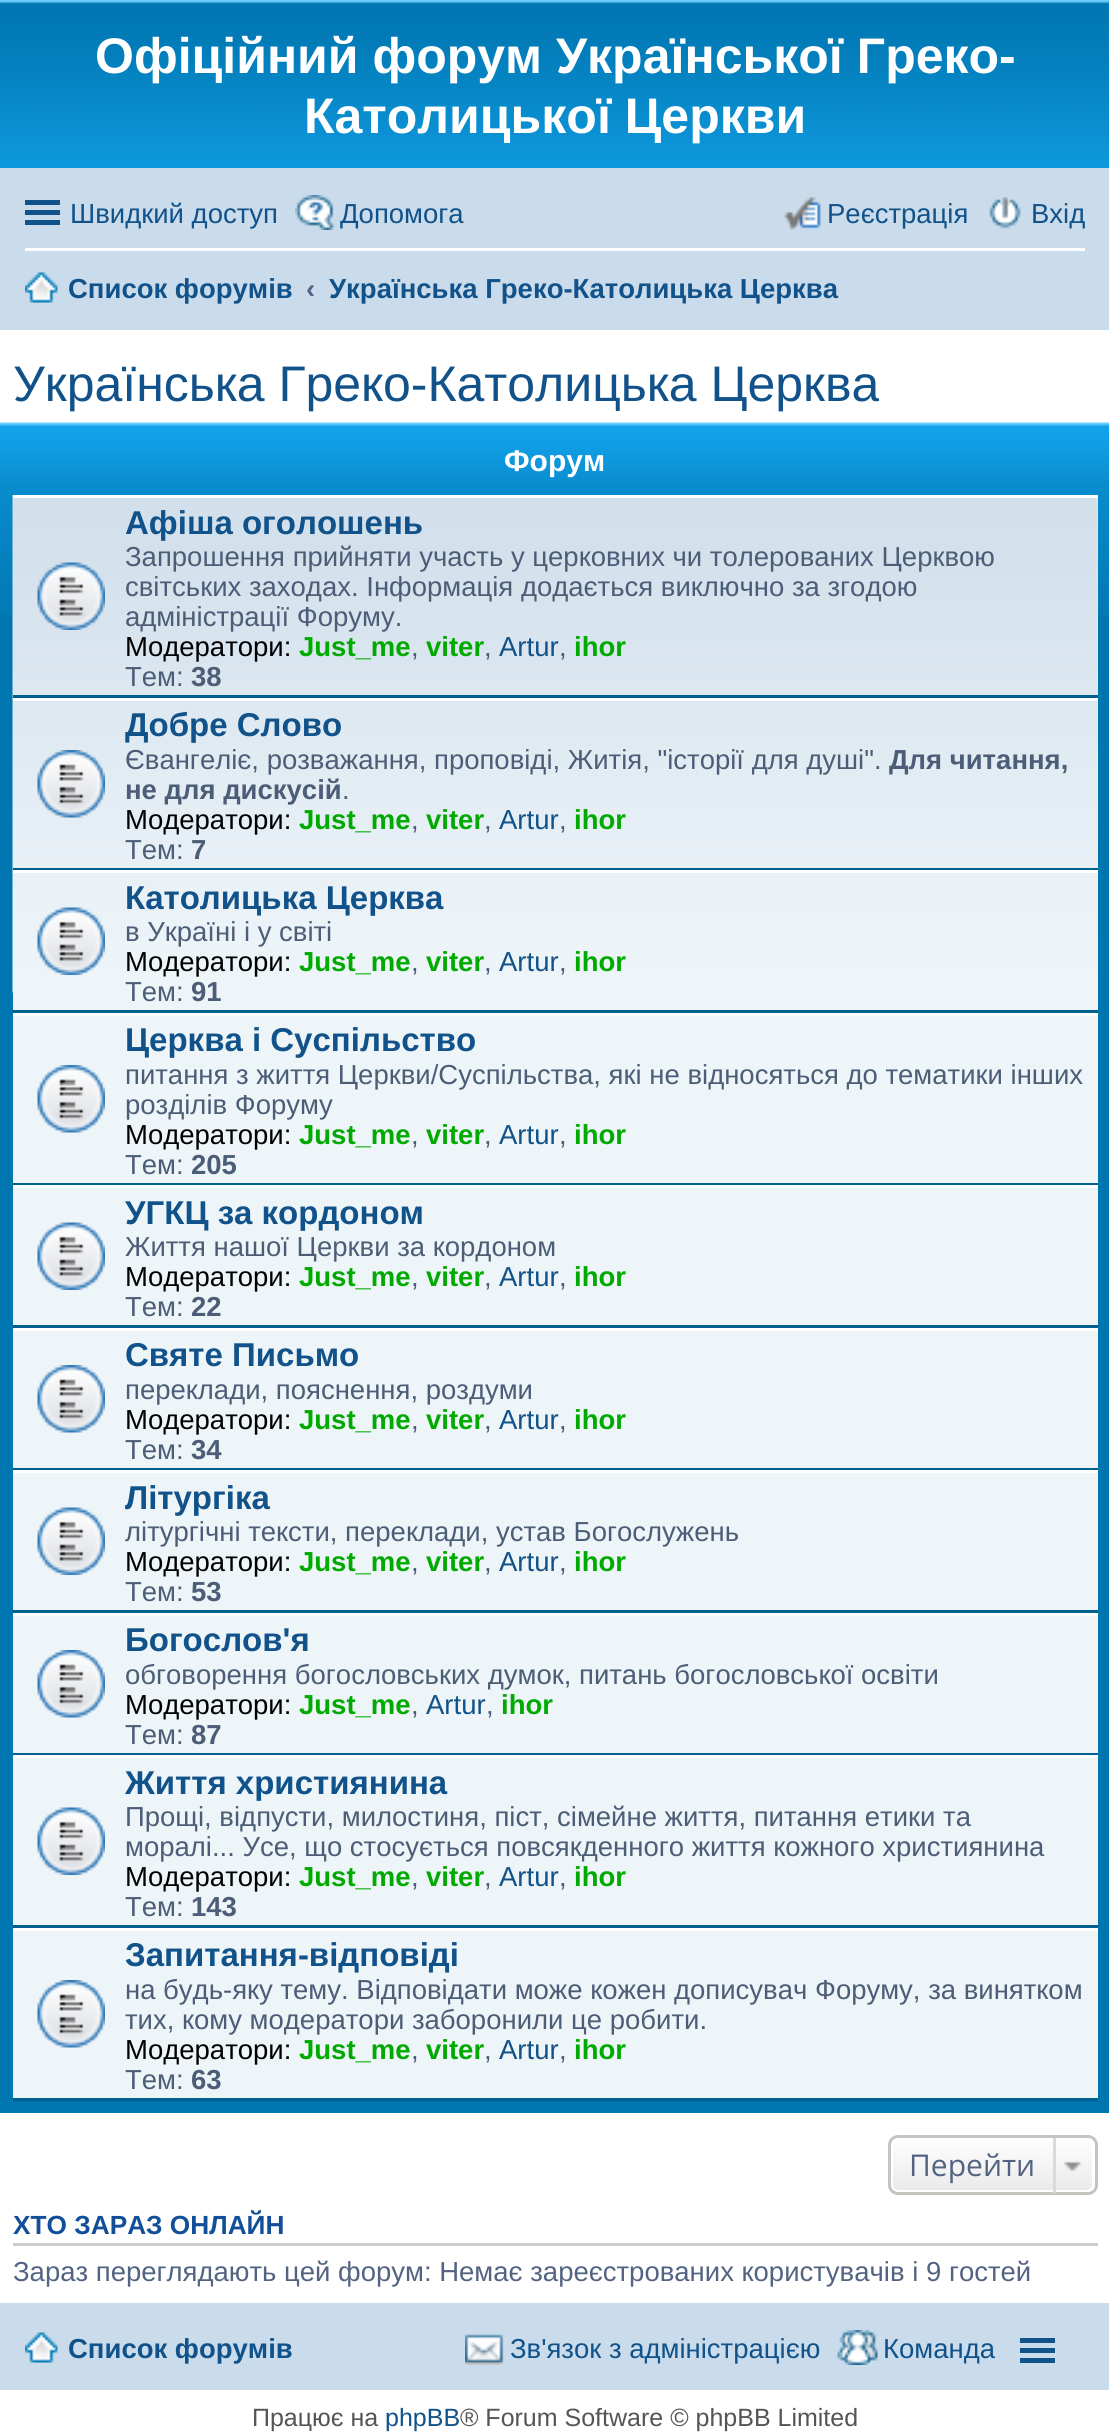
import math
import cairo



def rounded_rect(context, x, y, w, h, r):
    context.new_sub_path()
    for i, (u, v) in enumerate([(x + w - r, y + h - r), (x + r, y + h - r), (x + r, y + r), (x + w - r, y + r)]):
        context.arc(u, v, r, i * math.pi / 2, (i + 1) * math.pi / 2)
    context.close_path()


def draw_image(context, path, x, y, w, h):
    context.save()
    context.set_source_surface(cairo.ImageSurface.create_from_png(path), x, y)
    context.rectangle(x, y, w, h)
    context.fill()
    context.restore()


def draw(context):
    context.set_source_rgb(1, 1, 1)
    context.paint()
    draw_image(context, "images/1.png", 0, 0, 1109, 168)
    context.set_source_rgb(202 / 255, 220 / 255, 235 / 255)
    context.rectangle(0, 168, 1109, 162)
    context.fill()
    context.set_source_rgb(16 / 255, 82 / 255, 137 / 255)
    context.rectangle(25, 200, 35, 5)
    context.fill()
    context.rectangle(25, 210, 35, 5)
    context.fill()
    context.rectangle(25, 220, 35, 5)
    context.fill()
    draw_image(context, "images/2.png", 295, 195, 40, 35)
    draw_image(context, "images/3.png", 784, 196, 37, 34)
    draw_image(context, "images/4.png", 989, 197, 32, 32)
    context.set_source_rgb(1, 1, 1)
    context.rectangle(25, 248, 1060, 3)
    context.fill()
    draw_image(context, "images/5.png", 25, 272, 33, 31)
    context.set_source_rgb(0, 118 / 255, 177 / 255)
    context.rectangle(0, 615, 1109, 1498)
    context.fill()
    draw_image(context, "images/6.png", 0, 422, 1109, 193)
    context.set_source_rgb(238 / 255, 245 / 255, 249 / 255)
    context.rectangle(13, 498, 1085, 1600)
    context.fill()
    draw_image(context, "images/7.png", 12, 495, 1086, 498)
    context.set_source_rgb(1, 1, 1)
    context.rectangle(13, 495, 1085, 3)
    context.fill()
    context.set_source_rgb(0, 96 / 255, 143 / 255)
    context.rectangle(13, 695, 1085, 3)
    context.fill()
    draw_image(context, "images/8.png", 37, 562, 68, 68)
    context.set_source_rgb(1, 1, 1)
    context.rectangle(13, 698, 1085, 3)
    context.fill()
    context.set_source_rgb(0, 96 / 255, 143 / 255)
    context.rectangle(13, 868, 1085, 2)
    context.fill()
    draw_image(context, "images/9.png", 37, 750, 68, 68)
    context.set_source_rgb(1, 1, 1)
    context.rectangle(13, 870, 1085, 3)
    context.fill()
    context.set_source_rgb(0, 96 / 255, 143 / 255)
    context.rectangle(13, 1010, 1085, 3)
    context.fill()
    draw_image(context, "images/10.png", 37, 907, 68, 68)
    context.set_source_rgb(1, 1, 1)
    context.rectangle(13, 1013, 1085, 3)
    context.fill()
    context.set_source_rgb(0, 96 / 255, 143 / 255)
    context.rectangle(13, 1183, 1085, 2)
    context.fill()
    draw_image(context, "images/11.png", 37, 1065, 68, 68)
    context.set_source_rgb(1, 1, 1)
    context.rectangle(13, 1185, 1085, 3)
    context.fill()
    context.set_source_rgb(0, 96 / 255, 143 / 255)
    context.rectangle(13, 1325, 1085, 3)
    context.fill()
    draw_image(context, "images/12.png", 37, 1222, 68, 68)
    context.set_source_rgb(1, 1, 1)
    context.rectangle(13, 1328, 1085, 3)
    context.fill()
    context.set_source_rgb(0, 96 / 255, 143 / 255)
    context.rectangle(13, 1468, 1085, 2)
    context.fill()
    draw_image(context, "images/11.png", 37, 1365, 68, 68)
    context.set_source_rgb(1, 1, 1)
    context.rectangle(13, 1470, 1085, 3)
    context.fill()
    context.set_source_rgb(0, 96 / 255, 143 / 255)
    context.rectangle(13, 1610, 1085, 3)
    context.fill()
    draw_image(context, "images/12.png", 37, 1507, 68, 68)
    context.set_source_rgb(1, 1, 1)
    context.rectangle(13, 1613, 1085, 3)
    context.fill()
    context.set_source_rgb(0, 96 / 255, 143 / 255)
    context.rectangle(13, 1753, 1085, 2)
    context.fill()
    draw_image(context, "images/11.png", 37, 1650, 68, 68)
    context.set_source_rgb(1, 1, 1)
    context.rectangle(13, 1755, 1085, 3)
    context.fill()
    context.set_source_rgb(0, 96 / 255, 143 / 255)
    context.rectangle(13, 1925, 1085, 3)
    context.fill()
    draw_image(context, "images/12.png", 37, 1807, 68, 68)
    context.set_source_rgb(1, 1, 1)
    context.rectangle(13, 1928, 1085, 3)
    context.fill()
    context.set_source_rgb(0, 96 / 255, 143 / 255)
    context.rectangle(13, 2098, 1085, 3)
    context.fill()
    draw_image(context, "images/11.png", 37, 1980, 68, 68)
    context.save()
    rounded_rect(context, 888, 2135, 210, 60, 10)
    context.clip()
    gradient = cairo.LinearGradient(993, 2138, 993, 2193)
    gradient.add_color_stop_rgba(0, 1, 1, 1, 1)
    gradient.add_color_stop_rgba(1, 233 / 255, 233 / 255, 233 / 255, 1)
    context.set_source(gradient)
    context.rectangle(888, 2138, 210, 55)
    context.fill()
    context.restore()
    rounded_rect(context, 891.5, 2139.5, 202, 52, 6.5)
    context.set_source_rgb(1, 1, 1)
    context.set_line_width(3)
    context.stroke()
    rounded_rect(context, 889.5, 2136.5, 207, 57, 8.5)
    context.set_source_rgb(199 / 255, 195 / 255, 191 / 255)
    context.stroke()
    draw_image(context, "images/13.png", 1064, 2161, 18, 11)
    context.set_source_rgb(218 / 255, 218 / 255, 218 / 255)
    context.rectangle(1053, 2138, 3, 55)
    context.fill()
    context.set_source_rgb(204 / 255, 204 / 255, 204 / 255)
    context.rectangle(13, 2243, 1085, 3)
    context.fill()
    context.set_source_rgb(202 / 255, 220 / 255, 235 / 255)
    context.rectangle(0, 2303, 1109, 87)
    context.fill()
    draw_image(context, "images/5.png", 25, 2332, 33, 31)
    draw_image(context, "images/14.png", 465, 2334, 39, 31)
    draw_image(context, "images/15.png", 837, 2330, 41, 35)
    context.set_source_rgb(16 / 255, 82 / 255, 137 / 255)
    context.rectangle(1020, 2338, 35, 5)
    context.fill()
    context.rectangle(1020, 2348, 35, 5)
    context.fill()
    context.rectangle(1020, 2358, 35, 5)
    context.fill()
    context.select_font_face("Liberation Sans", cairo.FontSlant.NORMAL, cairo.FontWeight.BOLD)
    context.set_font_size(50)
    context.set_source_rgb(1, 1, 1)
    context.move_to(95, 73)
    context.show_text("Офіційний форум Української Греко-")
    context.move_to(304, 133)
    context.show_text("Католицької Церкви")
    context.select_font_face("Liberation Sans")
    context.set_font_size(27.5)
    context.set_source_rgb(16 / 255, 82 / 255, 137 / 255)
    context.move_to(70, 223)
    context.show_text("Швидкий доступ")
    context.move_to(340, 223)
    context.show_text("Допомога")
    context.move_to(827, 223)
    context.show_text("Реєстрація")
    context.move_to(1031, 223)
    context.show_text("Вхід")
    context.select_font_face("Liberation Sans", cairo.FontSlant.NORMAL, cairo.FontWeight.BOLD)
    context.move_to(68, 298)
    context.show_text("Список форумів")
    context.set_source_rgb(83 / 255, 100 / 255, 130 / 255)
    context.move_to(306, 298)
    context.show_text("‹")
    context.set_source_rgb(16 / 255, 82 / 255, 137 / 255)
    context.move_to(329, 298)
    context.show_text("Українська Греко-Католицька Церква")
    context.select_font_face("Liberation Sans")
    context.set_font_size(50)
    context.move_to(13, 401)
    context.show_text("Українська Греко-Католицька Церква")
    context.select_font_face("Liberation Sans", cairo.FontSlant.NORMAL, cairo.FontWeight.BOLD)
    context.set_font_size(30)
    context.set_source_rgb(1, 1, 1)
    context.move_to(504, 471)
    context.show_text("Форум")
    context.set_font_size(33)
    context.set_source_rgb(16 / 255, 82 / 255, 137 / 255)
    context.move_to(125, 534)
    context.show_text("Афіша оголошень")
    context.select_font_face("Liberation Sans")
    context.set_font_size(27.5)
    context.set_source_rgb(76 / 255, 93 / 255, 119 / 255)
    context.move_to(125, 566)
    context.show_text("Запрошення прийняти участь у церковних чи толерованих Церквою")
    context.move_to(125, 596)
    context.show_text("світських заходах. Інформація додається виключно за згодою")
    context.move_to(125, 626)
    context.show_text("адміністрації Форуму.")
    context.set_source_rgb(0, 0, 0)
    context.move_to(125, 656)
    context.show_text("Модератори:")
    context.select_font_face("Liberation Sans", cairo.FontSlant.NORMAL, cairo.FontWeight.BOLD)
    context.set_source_rgb(0, 170 / 255, 0)
    context.move_to(299, 656)
    context.show_text("Just_me")
    context.select_font_face("Liberation Sans")
    context.set_source_rgb(76 / 255, 93 / 255, 119 / 255)
    context.move_to(411, 656)
    context.show_text(",")
    context.select_font_face("Liberation Sans", cairo.FontSlant.NORMAL, cairo.FontWeight.BOLD)
    context.set_source_rgb(0, 170 / 255, 0)
    context.move_to(426, 656)
    context.show_text("viter")
    context.select_font_face("Liberation Sans")
    context.set_source_rgb(76 / 255, 93 / 255, 119 / 255)
    context.move_to(484, 656)
    context.show_text(",")
    context.set_source_rgb(16 / 255, 82 / 255, 137 / 255)
    context.move_to(499, 656)
    context.show_text("Artur")
    context.set_source_rgb(76 / 255, 93 / 255, 119 / 255)
    context.move_to(559, 656)
    context.show_text(",")
    context.select_font_face("Liberation Sans", cairo.FontSlant.NORMAL, cairo.FontWeight.BOLD)
    context.set_source_rgb(0, 170 / 255, 0)
    context.move_to(574, 656)
    context.show_text("ihor")
    context.select_font_face("Liberation Sans")
    context.set_source_rgb(76 / 255, 93 / 255, 119 / 255)
    context.move_to(125, 686)
    context.show_text("Тем:")
    context.select_font_face("Liberation Sans", cairo.FontSlant.NORMAL, cairo.FontWeight.BOLD)
    context.move_to(191, 686)
    context.show_text("38")
    context.set_font_size(33)
    context.set_source_rgb(16 / 255, 82 / 255, 137 / 255)
    context.move_to(125, 736)
    context.show_text("Добре Слово")
    context.select_font_face("Liberation Sans")
    context.set_font_size(27.5)
    context.set_source_rgb(76 / 255, 93 / 255, 119 / 255)
    context.move_to(125, 769)
    context.show_text("Євангеліє, розважання, проповіді, Житія, \"історії для душі\".")
    context.select_font_face("Liberation Sans", cairo.FontSlant.NORMAL, cairo.FontWeight.BOLD)
    context.move_to(889, 769)
    context.show_text("Для читання,")
    context.move_to(125, 799)
    context.show_text("не для дискусій")
    context.select_font_face("Liberation Sans")
    context.move_to(342, 799)
    context.show_text(".")
    context.set_source_rgb(0, 0, 0)
    context.move_to(125, 829)
    context.show_text("Модератори:")
    context.select_font_face("Liberation Sans", cairo.FontSlant.NORMAL, cairo.FontWeight.BOLD)
    context.set_source_rgb(0, 170 / 255, 0)
    context.move_to(299, 829)
    context.show_text("Just_me")
    context.select_font_face("Liberation Sans")
    context.set_source_rgb(76 / 255, 93 / 255, 119 / 255)
    context.move_to(411, 829)
    context.show_text(",")
    context.select_font_face("Liberation Sans", cairo.FontSlant.NORMAL, cairo.FontWeight.BOLD)
    context.set_source_rgb(0, 170 / 255, 0)
    context.move_to(426, 829)
    context.show_text("viter")
    context.select_font_face("Liberation Sans")
    context.set_source_rgb(76 / 255, 93 / 255, 119 / 255)
    context.move_to(484, 829)
    context.show_text(",")
    context.set_source_rgb(16 / 255, 82 / 255, 137 / 255)
    context.move_to(499, 829)
    context.show_text("Artur")
    context.set_source_rgb(76 / 255, 93 / 255, 119 / 255)
    context.move_to(559, 829)
    context.show_text(",")
    context.select_font_face("Liberation Sans", cairo.FontSlant.NORMAL, cairo.FontWeight.BOLD)
    context.set_source_rgb(0, 170 / 255, 0)
    context.move_to(574, 829)
    context.show_text("ihor")
    context.select_font_face("Liberation Sans")
    context.set_source_rgb(76 / 255, 93 / 255, 119 / 255)
    context.move_to(125, 859)
    context.show_text("Тем:")
    context.select_font_face("Liberation Sans", cairo.FontSlant.NORMAL, cairo.FontWeight.BOLD)
    context.move_to(191, 859)
    context.show_text("7")
    context.set_font_size(33)
    context.set_source_rgb(16 / 255, 82 / 255, 137 / 255)
    context.move_to(125, 909)
    context.show_text("Католицька Церква")
    context.select_font_face("Liberation Sans")
    context.set_font_size(27.5)
    context.set_source_rgb(76 / 255, 93 / 255, 119 / 255)
    context.move_to(125, 941)
    context.show_text("в Україні і у світі")
    context.set_source_rgb(0, 0, 0)
    context.move_to(125, 971)
    context.show_text("Модератори:")
    context.select_font_face("Liberation Sans", cairo.FontSlant.NORMAL, cairo.FontWeight.BOLD)
    context.set_source_rgb(0, 170 / 255, 0)
    context.move_to(299, 971)
    context.show_text("Just_me")
    context.select_font_face("Liberation Sans")
    context.set_source_rgb(76 / 255, 93 / 255, 119 / 255)
    context.move_to(411, 971)
    context.show_text(",")
    context.select_font_face("Liberation Sans", cairo.FontSlant.NORMAL, cairo.FontWeight.BOLD)
    context.set_source_rgb(0, 170 / 255, 0)
    context.move_to(426, 971)
    context.show_text("viter")
    context.select_font_face("Liberation Sans")
    context.set_source_rgb(76 / 255, 93 / 255, 119 / 255)
    context.move_to(484, 971)
    context.show_text(",")
    context.set_source_rgb(16 / 255, 82 / 255, 137 / 255)
    context.move_to(499, 971)
    context.show_text("Artur")
    context.set_source_rgb(76 / 255, 93 / 255, 119 / 255)
    context.move_to(559, 971)
    context.show_text(",")
    context.select_font_face("Liberation Sans", cairo.FontSlant.NORMAL, cairo.FontWeight.BOLD)
    context.set_source_rgb(0, 170 / 255, 0)
    context.move_to(574, 971)
    context.show_text("ihor")
    context.select_font_face("Liberation Sans")
    context.set_source_rgb(76 / 255, 93 / 255, 119 / 255)
    context.move_to(125, 1001)
    context.show_text("Тем:")
    context.select_font_face("Liberation Sans", cairo.FontSlant.NORMAL, cairo.FontWeight.BOLD)
    context.move_to(191, 1001)
    context.show_text("91")
    context.set_font_size(33)
    context.set_source_rgb(16 / 255, 82 / 255, 137 / 255)
    context.move_to(125, 1051)
    context.show_text("Церква і Суспільство")
    context.select_font_face("Liberation Sans")
    context.set_font_size(27.5)
    context.set_source_rgb(76 / 255, 93 / 255, 119 / 255)
    context.move_to(125, 1084)
    context.show_text("питання з життя Церкви/Суспільства, які не відносяться до тематики інших")
    context.move_to(125, 1114)
    context.show_text("розділів Форуму")
    context.set_source_rgb(0, 0, 0)
    context.move_to(125, 1144)
    context.show_text("Модератори:")
    context.select_font_face("Liberation Sans", cairo.FontSlant.NORMAL, cairo.FontWeight.BOLD)
    context.set_source_rgb(0, 170 / 255, 0)
    context.move_to(299, 1144)
    context.show_text("Just_me")
    context.select_font_face("Liberation Sans")
    context.set_source_rgb(76 / 255, 93 / 255, 119 / 255)
    context.move_to(411, 1144)
    context.show_text(",")
    context.select_font_face("Liberation Sans", cairo.FontSlant.NORMAL, cairo.FontWeight.BOLD)
    context.set_source_rgb(0, 170 / 255, 0)
    context.move_to(426, 1144)
    context.show_text("viter")
    context.select_font_face("Liberation Sans")
    context.set_source_rgb(76 / 255, 93 / 255, 119 / 255)
    context.move_to(484, 1144)
    context.show_text(",")
    context.set_source_rgb(16 / 255, 82 / 255, 137 / 255)
    context.move_to(499, 1144)
    context.show_text("Artur")
    context.set_source_rgb(76 / 255, 93 / 255, 119 / 255)
    context.move_to(559, 1144)
    context.show_text(",")
    context.select_font_face("Liberation Sans", cairo.FontSlant.NORMAL, cairo.FontWeight.BOLD)
    context.set_source_rgb(0, 170 / 255, 0)
    context.move_to(574, 1144)
    context.show_text("ihor")
    context.select_font_face("Liberation Sans")
    context.set_source_rgb(76 / 255, 93 / 255, 119 / 255)
    context.move_to(125, 1174)
    context.show_text("Тем:")
    context.select_font_face("Liberation Sans", cairo.FontSlant.NORMAL, cairo.FontWeight.BOLD)
    context.move_to(191, 1174)
    context.show_text("205")
    context.set_font_size(33)
    context.set_source_rgb(16 / 255, 82 / 255, 137 / 255)
    context.move_to(125, 1224)
    context.show_text("УГКЦ за кордоном")
    context.select_font_face("Liberation Sans")
    context.set_font_size(27.5)
    context.set_source_rgb(76 / 255, 93 / 255, 119 / 255)
    context.move_to(125, 1256)
    context.show_text("Життя нашої Церкви за кордоном")
    context.set_source_rgb(0, 0, 0)
    context.move_to(125, 1286)
    context.show_text("Модератори:")
    context.select_font_face("Liberation Sans", cairo.FontSlant.NORMAL, cairo.FontWeight.BOLD)
    context.set_source_rgb(0, 170 / 255, 0)
    context.move_to(299, 1286)
    context.show_text("Just_me")
    context.select_font_face("Liberation Sans")
    context.set_source_rgb(76 / 255, 93 / 255, 119 / 255)
    context.move_to(411, 1286)
    context.show_text(",")
    context.select_font_face("Liberation Sans", cairo.FontSlant.NORMAL, cairo.FontWeight.BOLD)
    context.set_source_rgb(0, 170 / 255, 0)
    context.move_to(426, 1286)
    context.show_text("viter")
    context.select_font_face("Liberation Sans")
    context.set_source_rgb(76 / 255, 93 / 255, 119 / 255)
    context.move_to(484, 1286)
    context.show_text(",")
    context.set_source_rgb(16 / 255, 82 / 255, 137 / 255)
    context.move_to(499, 1286)
    context.show_text("Artur")
    context.set_source_rgb(76 / 255, 93 / 255, 119 / 255)
    context.move_to(559, 1286)
    context.show_text(",")
    context.select_font_face("Liberation Sans", cairo.FontSlant.NORMAL, cairo.FontWeight.BOLD)
    context.set_source_rgb(0, 170 / 255, 0)
    context.move_to(574, 1286)
    context.show_text("ihor")
    context.select_font_face("Liberation Sans")
    context.set_source_rgb(76 / 255, 93 / 255, 119 / 255)
    context.move_to(125, 1316)
    context.show_text("Тем:")
    context.select_font_face("Liberation Sans", cairo.FontSlant.NORMAL, cairo.FontWeight.BOLD)
    context.move_to(191, 1316)
    context.show_text("22")
    context.set_font_size(33)
    context.set_source_rgb(16 / 255, 82 / 255, 137 / 255)
    context.move_to(125, 1366)
    context.show_text("Святе Письмо")
    context.select_font_face("Liberation Sans")
    context.set_font_size(27.5)
    context.set_source_rgb(76 / 255, 93 / 255, 119 / 255)
    context.move_to(125, 1399)
    context.show_text("переклади, пояснення, роздуми")
    context.set_source_rgb(0, 0, 0)
    context.move_to(125, 1429)
    context.show_text("Модератори:")
    context.select_font_face("Liberation Sans", cairo.FontSlant.NORMAL, cairo.FontWeight.BOLD)
    context.set_source_rgb(0, 170 / 255, 0)
    context.move_to(299, 1429)
    context.show_text("Just_me")
    context.select_font_face("Liberation Sans")
    context.set_source_rgb(76 / 255, 93 / 255, 119 / 255)
    context.move_to(411, 1429)
    context.show_text(",")
    context.select_font_face("Liberation Sans", cairo.FontSlant.NORMAL, cairo.FontWeight.BOLD)
    context.set_source_rgb(0, 170 / 255, 0)
    context.move_to(426, 1429)
    context.show_text("viter")
    context.select_font_face("Liberation Sans")
    context.set_source_rgb(76 / 255, 93 / 255, 119 / 255)
    context.move_to(484, 1429)
    context.show_text(",")
    context.set_source_rgb(16 / 255, 82 / 255, 137 / 255)
    context.move_to(499, 1429)
    context.show_text("Artur")
    context.set_source_rgb(76 / 255, 93 / 255, 119 / 255)
    context.move_to(559, 1429)
    context.show_text(",")
    context.select_font_face("Liberation Sans", cairo.FontSlant.NORMAL, cairo.FontWeight.BOLD)
    context.set_source_rgb(0, 170 / 255, 0)
    context.move_to(574, 1429)
    context.show_text("ihor")
    context.select_font_face("Liberation Sans")
    context.set_source_rgb(76 / 255, 93 / 255, 119 / 255)
    context.move_to(125, 1459)
    context.show_text("Тем:")
    context.select_font_face("Liberation Sans", cairo.FontSlant.NORMAL, cairo.FontWeight.BOLD)
    context.move_to(191, 1459)
    context.show_text("34")
    context.set_font_size(33)
    context.set_source_rgb(16 / 255, 82 / 255, 137 / 255)
    context.move_to(125, 1509)
    context.show_text("Літургіка")
    context.select_font_face("Liberation Sans")
    context.set_font_size(27.5)
    context.set_source_rgb(76 / 255, 93 / 255, 119 / 255)
    context.move_to(125, 1541)
    context.show_text("літургічні тексти, переклади, устав Богослужень")
    context.set_source_rgb(0, 0, 0)
    context.move_to(125, 1571)
    context.show_text("Модератори:")
    context.select_font_face("Liberation Sans", cairo.FontSlant.NORMAL, cairo.FontWeight.BOLD)
    context.set_source_rgb(0, 170 / 255, 0)
    context.move_to(299, 1571)
    context.show_text("Just_me")
    context.select_font_face("Liberation Sans")
    context.set_source_rgb(76 / 255, 93 / 255, 119 / 255)
    context.move_to(411, 1571)
    context.show_text(",")
    context.select_font_face("Liberation Sans", cairo.FontSlant.NORMAL, cairo.FontWeight.BOLD)
    context.set_source_rgb(0, 170 / 255, 0)
    context.move_to(426, 1571)
    context.show_text("viter")
    context.select_font_face("Liberation Sans")
    context.set_source_rgb(76 / 255, 93 / 255, 119 / 255)
    context.move_to(484, 1571)
    context.show_text(",")
    context.set_source_rgb(16 / 255, 82 / 255, 137 / 255)
    context.move_to(499, 1571)
    context.show_text("Artur")
    context.set_source_rgb(76 / 255, 93 / 255, 119 / 255)
    context.move_to(559, 1571)
    context.show_text(",")
    context.select_font_face("Liberation Sans", cairo.FontSlant.NORMAL, cairo.FontWeight.BOLD)
    context.set_source_rgb(0, 170 / 255, 0)
    context.move_to(574, 1571)
    context.show_text("ihor")
    context.select_font_face("Liberation Sans")
    context.set_source_rgb(76 / 255, 93 / 255, 119 / 255)
    context.move_to(125, 1601)
    context.show_text("Тем:")
    context.select_font_face("Liberation Sans", cairo.FontSlant.NORMAL, cairo.FontWeight.BOLD)
    context.move_to(191, 1601)
    context.show_text("53")
    context.set_font_size(33)
    context.set_source_rgb(16 / 255, 82 / 255, 137 / 255)
    context.move_to(125, 1651)
    context.show_text("Богослов'я")
    context.select_font_face("Liberation Sans")
    context.set_font_size(27.5)
    context.set_source_rgb(76 / 255, 93 / 255, 119 / 255)
    context.move_to(125, 1684)
    context.show_text("обговорення богословських думок, питань богословської освіти")
    context.set_source_rgb(0, 0, 0)
    context.move_to(125, 1714)
    context.show_text("Модератори:")
    context.select_font_face("Liberation Sans", cairo.FontSlant.NORMAL, cairo.FontWeight.BOLD)
    context.set_source_rgb(0, 170 / 255, 0)
    context.move_to(299, 1714)
    context.show_text("Just_me")
    context.select_font_face("Liberation Sans")
    context.set_source_rgb(76 / 255, 93 / 255, 119 / 255)
    context.move_to(411, 1714)
    context.show_text(",")
    context.set_source_rgb(16 / 255, 82 / 255, 137 / 255)
    context.move_to(426, 1714)
    context.show_text("Artur")
    context.set_source_rgb(76 / 255, 93 / 255, 119 / 255)
    context.move_to(486, 1714)
    context.show_text(",")
    context.select_font_face("Liberation Sans", cairo.FontSlant.NORMAL, cairo.FontWeight.BOLD)
    context.set_source_rgb(0, 170 / 255, 0)
    context.move_to(501, 1714)
    context.show_text("ihor")
    context.select_font_face("Liberation Sans")
    context.set_source_rgb(76 / 255, 93 / 255, 119 / 255)
    context.move_to(125, 1744)
    context.show_text("Тем:")
    context.select_font_face("Liberation Sans", cairo.FontSlant.NORMAL, cairo.FontWeight.BOLD)
    context.move_to(191, 1744)
    context.show_text("87")
    context.set_font_size(33)
    context.set_source_rgb(16 / 255, 82 / 255, 137 / 255)
    context.move_to(125, 1794)
    context.show_text("Життя християнина")
    context.select_font_face("Liberation Sans")
    context.set_font_size(27.5)
    context.set_source_rgb(76 / 255, 93 / 255, 119 / 255)
    context.move_to(125, 1826)
    context.show_text("Прощі, відпусти, милостиня, піст, сімейне життя, питання етики та")
    context.move_to(125, 1856)
    context.show_text("моралі... Усе, що стосується повсякденного життя кожного християнина")
    context.set_source_rgb(0, 0, 0)
    context.move_to(125, 1886)
    context.show_text("Модератори:")
    context.select_font_face("Liberation Sans", cairo.FontSlant.NORMAL, cairo.FontWeight.BOLD)
    context.set_source_rgb(0, 170 / 255, 0)
    context.move_to(299, 1886)
    context.show_text("Just_me")
    context.select_font_face("Liberation Sans")
    context.set_source_rgb(76 / 255, 93 / 255, 119 / 255)
    context.move_to(411, 1886)
    context.show_text(",")
    context.select_font_face("Liberation Sans", cairo.FontSlant.NORMAL, cairo.FontWeight.BOLD)
    context.set_source_rgb(0, 170 / 255, 0)
    context.move_to(426, 1886)
    context.show_text("viter")
    context.select_font_face("Liberation Sans")
    context.set_source_rgb(76 / 255, 93 / 255, 119 / 255)
    context.move_to(484, 1886)
    context.show_text(",")
    context.set_source_rgb(16 / 255, 82 / 255, 137 / 255)
    context.move_to(499, 1886)
    context.show_text("Artur")
    context.set_source_rgb(76 / 255, 93 / 255, 119 / 255)
    context.move_to(559, 1886)
    context.show_text(",")
    context.select_font_face("Liberation Sans", cairo.FontSlant.NORMAL, cairo.FontWeight.BOLD)
    context.set_source_rgb(0, 170 / 255, 0)
    context.move_to(574, 1886)
    context.show_text("ihor")
    context.select_font_face("Liberation Sans")
    context.set_source_rgb(76 / 255, 93 / 255, 119 / 255)
    context.move_to(125, 1916)
    context.show_text("Тем:")
    context.select_font_face("Liberation Sans", cairo.FontSlant.NORMAL, cairo.FontWeight.BOLD)
    context.move_to(191, 1916)
    context.show_text("143")
    context.set_font_size(33)
    context.set_source_rgb(16 / 255, 82 / 255, 137 / 255)
    context.move_to(125, 1966)
    context.show_text("Запитання-відповіді")
    context.select_font_face("Liberation Sans")
    context.set_font_size(27.5)
    context.set_source_rgb(76 / 255, 93 / 255, 119 / 255)
    context.move_to(125, 1999)
    context.show_text("на будь-яку тему. Відповідати може кожен дописувач Форуму, за винятком")
    context.move_to(125, 2029)
    context.show_text("тих, кому модератори заборонили це робити.")
    context.set_source_rgb(0, 0, 0)
    context.move_to(125, 2059)
    context.show_text("Модератори:")
    context.select_font_face("Liberation Sans", cairo.FontSlant.NORMAL, cairo.FontWeight.BOLD)
    context.set_source_rgb(0, 170 / 255, 0)
    context.move_to(299, 2059)
    context.show_text("Just_me")
    context.select_font_face("Liberation Sans")
    context.set_source_rgb(76 / 255, 93 / 255, 119 / 255)
    context.move_to(411, 2059)
    context.show_text(",")
    context.select_font_face("Liberation Sans", cairo.FontSlant.NORMAL, cairo.FontWeight.BOLD)
    context.set_source_rgb(0, 170 / 255, 0)
    context.move_to(426, 2059)
    context.show_text("viter")
    context.select_font_face("Liberation Sans")
    context.set_source_rgb(76 / 255, 93 / 255, 119 / 255)
    context.move_to(484, 2059)
    context.show_text(",")
    context.set_source_rgb(16 / 255, 82 / 255, 137 / 255)
    context.move_to(499, 2059)
    context.show_text("Artur")
    context.set_source_rgb(76 / 255, 93 / 255, 119 / 255)
    context.move_to(559, 2059)
    context.show_text(",")
    context.select_font_face("Liberation Sans", cairo.FontSlant.NORMAL, cairo.FontWeight.BOLD)
    context.set_source_rgb(0, 170 / 255, 0)
    context.move_to(574, 2059)
    context.show_text("ihor")
    context.select_font_face("Liberation Sans")
    context.set_source_rgb(76 / 255, 93 / 255, 119 / 255)
    context.move_to(125, 2089)
    context.show_text("Тем:")
    context.select_font_face("Liberation Sans", cairo.FontSlant.NORMAL, cairo.FontWeight.BOLD)
    context.move_to(191, 2089)
    context.show_text("63")
    context.select_font_face("Open Sans")
    context.set_font_size(30)
    context.set_source_rgb(83 / 255, 100 / 255, 130 / 255)
    context.move_to(909, 2176)
    context.show_text("Перейти")
    context.select_font_face("Liberation Sans", cairo.FontSlant.NORMAL, cairo.FontWeight.BOLD)
    context.set_font_size(26.25)
    context.set_source_rgb(17 / 255, 80 / 255, 152 / 255)
    context.move_to(13, 2234)
    context.show_text("ХТО ЗАРАЗ ОНЛАЙН")
    context.select_font_face("Liberation Sans")
    context.set_font_size(27.5)
    context.set_source_rgb(83 / 255, 100 / 255, 130 / 255)
    context.move_to(13, 2281)
    context.show_text("Зараз переглядають цей форум: Немає зареєстрованих користувачів і 9 гостей")
    context.select_font_face("Liberation Sans", cairo.FontSlant.NORMAL, cairo.FontWeight.BOLD)
    context.set_source_rgb(16 / 255, 82 / 255, 137 / 255)
    context.move_to(68, 2358)
    context.show_text("Список форумів")
    context.select_font_face("Liberation Sans")
    context.move_to(510, 2358)
    context.show_text("Зв'язок з адміністрацією")
    context.move_to(883, 2358)
    context.show_text("Команда")
    context.set_font_size(25)
    context.set_source_rgb(85 / 255, 85 / 255, 85 / 255)
    context.move_to(252, 2426)
    context.show_text("Працює на")
    context.set_source_rgb(16 / 255, 82 / 255, 137 / 255)
    context.move_to(385, 2426)
    context.show_text("phpBB")
    context.set_source_rgb(85 / 255, 85 / 255, 85 / 255)
    context.move_to(460, 2426)
    context.show_text("® Forum Software © phpBB Limited")


surface = cairo.ImageSurface(cairo.Format.RGB24, 1109, 2433)
context = cairo.Context(surface)
options = cairo.FontOptions()
options.set_hint_metrics(cairo.HintMetrics.OFF)
options.set_hint_style(cairo.HintStyle.NONE)
context.set_font_options(options)
context.set_miter_limit(4)
draw(context)
surface.write_to_png("out.png")
